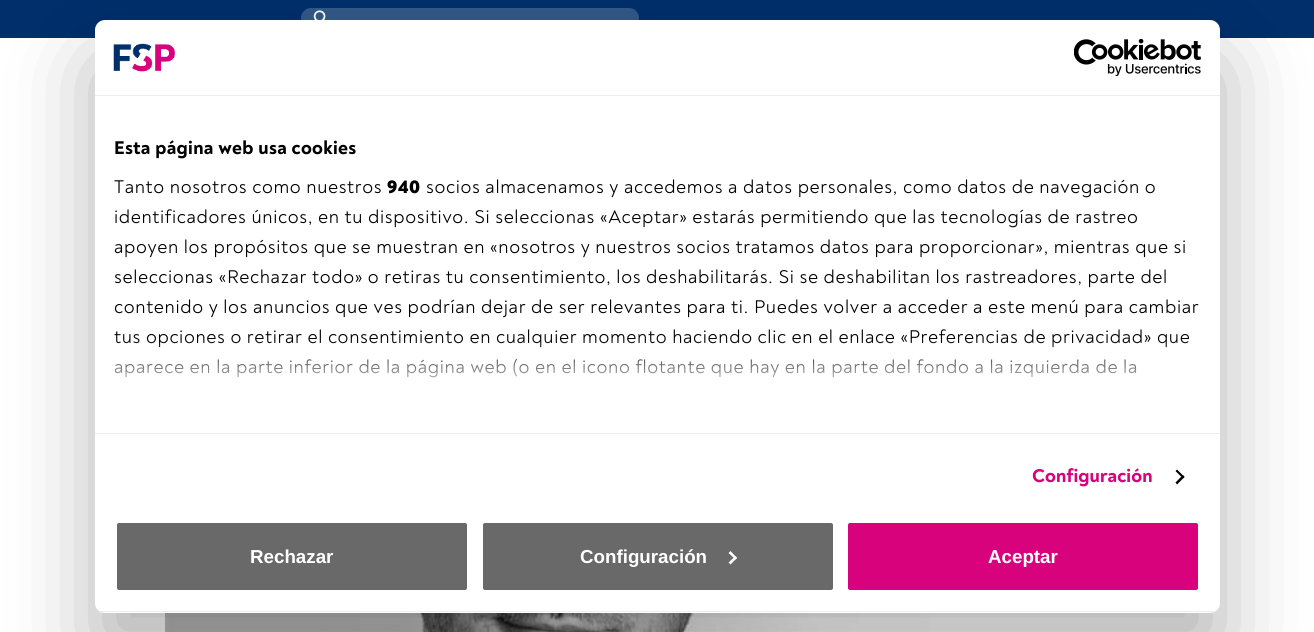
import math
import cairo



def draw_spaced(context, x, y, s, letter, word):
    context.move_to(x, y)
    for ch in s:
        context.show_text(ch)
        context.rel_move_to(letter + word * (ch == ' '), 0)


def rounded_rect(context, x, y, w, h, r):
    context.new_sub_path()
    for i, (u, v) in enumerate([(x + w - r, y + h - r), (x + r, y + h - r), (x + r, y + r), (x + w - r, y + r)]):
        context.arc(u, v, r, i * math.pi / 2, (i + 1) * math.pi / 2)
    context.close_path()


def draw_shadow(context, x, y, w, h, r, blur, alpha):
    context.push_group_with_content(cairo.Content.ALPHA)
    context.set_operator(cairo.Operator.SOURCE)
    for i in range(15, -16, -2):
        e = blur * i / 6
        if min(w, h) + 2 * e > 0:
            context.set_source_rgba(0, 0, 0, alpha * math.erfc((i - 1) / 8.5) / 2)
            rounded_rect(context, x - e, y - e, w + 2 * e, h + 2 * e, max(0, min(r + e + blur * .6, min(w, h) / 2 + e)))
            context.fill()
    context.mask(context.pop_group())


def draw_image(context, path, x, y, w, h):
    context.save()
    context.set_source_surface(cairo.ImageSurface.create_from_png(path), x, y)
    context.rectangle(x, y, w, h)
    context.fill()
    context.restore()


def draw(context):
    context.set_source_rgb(1, 1, 1)
    context.paint()
    context.set_source_rgb(0, 47 / 255, 108 / 255)
    context.rectangle(0, 0, 1314, 38)
    context.fill()
    context.set_source_rgb(51 / 255, 89 / 255, 137 / 255)
    rounded_rect(context, 301, 8, 338, 20, 10)
    context.fill()
    draw_image(context, "images/1.png", 313, 10, 13, 10)
    draw_image(context, "images/4.png", 165, 613, 765, 19)
    context.set_source_rgb(0, 0, 0)
    draw_shadow(context, 95, 60, 1125, 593, 10, 42.5, 0.3)
    context.set_source_rgb(1, 1, 1)
    rounded_rect(context, 95, 20, 1125, 593, 10)
    context.fill()
    context.set_source_rgb(238 / 255, 238 / 255, 238 / 255)
    context.rectangle(95, 95, 1125, 1)
    context.fill()
    draw_image(context, "images/2.png", 113, 43, 62, 29)
    draw_image(context, "images/3.png", 1074, 39, 127, 37)
    context.rectangle(95, 433, 1125, 1)
    context.fill()
    context.set_source_rgb(0, 0, 0)
    context.new_path()
    context.move_to(1177, 469.5)
    context.line_to(1184.5, 477)
    context.line_to(1183, 478.5)
    context.line_to(1175.5, 471)
    context.close_path()
    context.fill()
    context.new_path()
    context.move_to(1183, 475)
    context.line_to(1184.5, 477)
    context.line_to(1177, 484.5)
    context.line_to(1175.5, 482.5)
    context.close_path()
    context.fill()
    context.save()
    rounded_rect(context, 95, 20, 1125, 593, 10)
    context.clip()
    context.set_source_rgb(238 / 255, 238 / 255, 238 / 255)
    context.rectangle(95, 611, 1125, 1)
    context.fill()
    context.restore()
    context.set_source_rgb(105 / 255, 105 / 255, 105 / 255)
    rounded_rect(context, 115.5, 521.5, 353, 70, 3.5)
    context.fill_preserve()
    context.set_source_rgb(1, 1, 1)
    context.set_line_width(3)
    context.stroke()
    context.set_source_rgb(105 / 255, 105 / 255, 105 / 255)
    rounded_rect(context, 481.5, 521.5, 353, 70, 3.5)
    context.fill_preserve()
    context.set_source_rgb(1, 1, 1)
    context.stroke()
    context.new_path()
    context.move_to(730.5, 551)
    context.line_to(737, 558)
    context.line_to(735.5, 559.5)
    context.line_to(728.5, 553)
    context.close_path()
    context.fill()
    context.new_path()
    context.move_to(735.5, 556)
    context.line_to(737, 558)
    context.line_to(730.5, 564.5)
    context.line_to(728.5, 562.5)
    context.close_path()
    context.fill()
    context.set_source_rgb(217 / 255, 2 / 255, 125 / 255)
    rounded_rect(context, 846.5, 521.5, 353, 70, 3.5)
    context.fill_preserve()
    context.set_source_rgb(1, 1, 1)
    context.stroke()
    context.select_font_face("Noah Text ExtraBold")
    context.set_font_size(18.75)
    context.set_source_rgb(0, 0, 0)
    draw_spaced(context, 114, 154, "Esta página web usa cookies", 0.3, 0)
    context.select_font_face("Noah Text")
    draw_spaced(context, 114, 193, "Tanto nosotros como nuestros", 0.62, 0)
    context.select_font_face("Noah Text Black")
    draw_spaced(context, 387, 193, "940", 0.62, 0)
    context.select_font_face("Noah Text")
    draw_spaced(context, 426, 193, "socios almacenamos y accedemos a datos personales, como datos de navegación o", 0.62, 0)
    draw_spaced(context, 114, 223, "identificadores únicos, en tu dispositivo. Si seleccionas «Aceptar» estarás permitiendo que las tecnologías de rastreo", 0.62, 0)
    draw_spaced(context, 114, 253, "apoyen los propósitos que se muestran en «nosotros y nuestros socios tratamos datos para proporcionar», mientras que si", 0.62, 0)
    draw_spaced(context, 114, 283, "seleccionas «Rechazar todo» o retiras tu consentimiento, los deshabilitarás. Si se deshabilitan los rastreadores, parte del", 0.62, 0)
    draw_spaced(context, 114, 313, "contenido y los anuncios que ves podrían dejar de ser relevantes para ti. Puedes volver a acceder a este menú para cambiar", 0.62, 0)
    draw_spaced(context, 114, 343, "tus opciones o retirar el consentimiento en cualquier momento haciendo clic en el enlace «Preferencias de privacidad» que", 0.62, 0)
    draw_spaced(context, 114, 373, "aparece en la parte inferior de la página web (o en el icono flotante que hay en la parte del fondo a la izquierda de la", 0.62, 0)
    gradient = cairo.LinearGradient(649, 433, 649, 339)
    gradient.add_color_stop_rgba(0, 1, 1, 1, 1)
    gradient.add_color_stop_rgba(0.5, 1, 1, 1, 0.8)
    gradient.add_color_stop_rgba(1, 1, 1, 1, 0)
    context.set_source(gradient)
    context.rectangle(114, 340, 1075, 38)
    context.fill()
    context.select_font_face("Noah Text ExtraBold")
    context.set_source_rgb(217 / 255, 2 / 255, 125 / 255)
    draw_spaced(context, 1032, 482, "Configuración", 0.1, 0)
    context.select_font_face("Liberation Sans", cairo.FontSlant.NORMAL, cairo.FontWeight.BOLD)
    context.set_source_rgb(1, 1, 1)
    context.move_to(250, 563)
    context.show_text("Rechazar")
    context.move_to(580, 563)
    context.show_text("Configuración")
    context.move_to(988, 563)
    context.show_text("Aceptar")


surface = cairo.ImageSurface(cairo.Format.RGB24, 1314, 632)
context = cairo.Context(surface)
options = cairo.FontOptions()
options.set_hint_metrics(cairo.HintMetrics.OFF)
options.set_hint_style(cairo.HintStyle.NONE)
context.set_font_options(options)
context.set_miter_limit(4)
draw(context)
surface.write_to_png("out.png")
